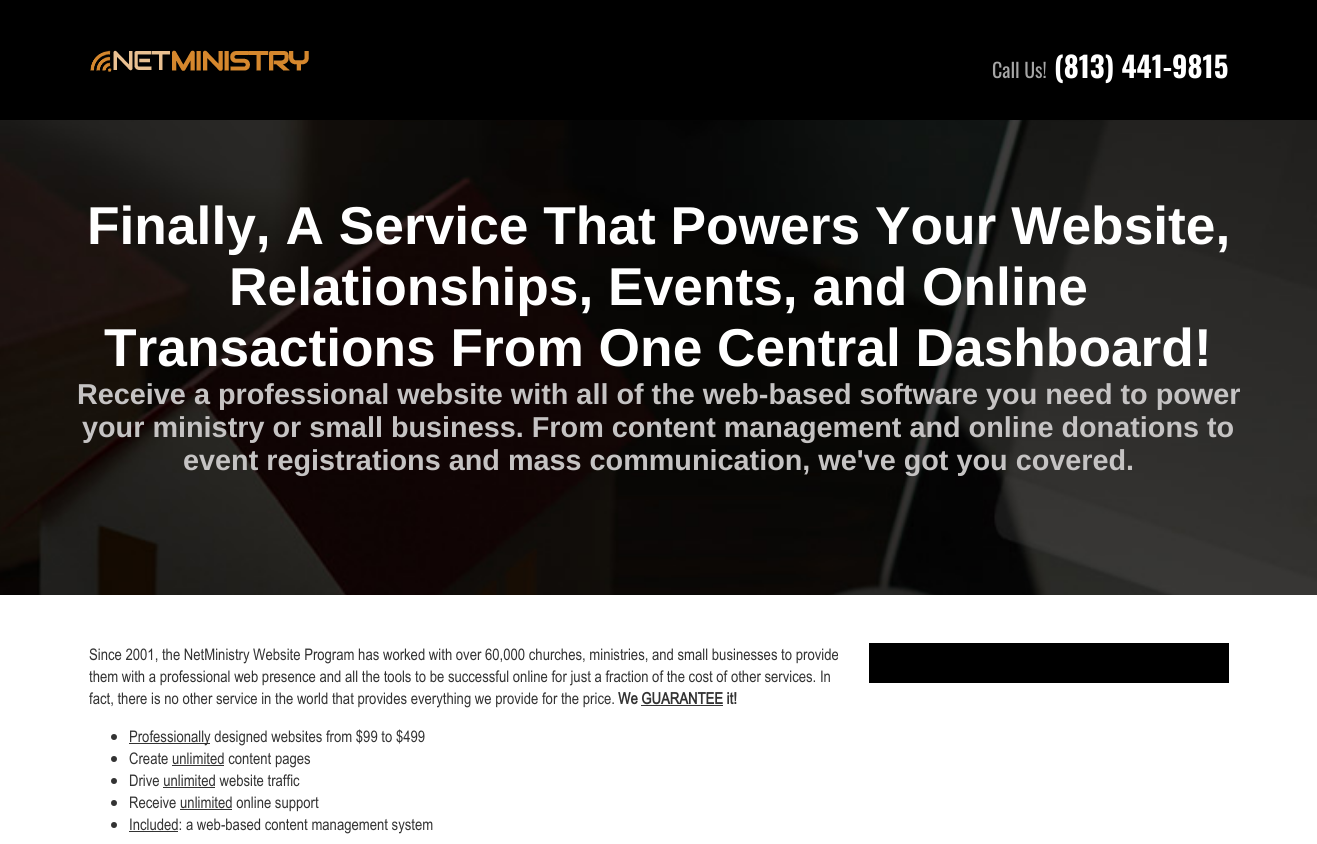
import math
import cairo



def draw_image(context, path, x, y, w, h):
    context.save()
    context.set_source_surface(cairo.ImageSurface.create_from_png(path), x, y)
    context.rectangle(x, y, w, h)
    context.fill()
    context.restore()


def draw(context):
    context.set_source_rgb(0, 0, 0)
    context.paint()
    draw_image(context, "images/1.png", 90, 50, 219, 22)
    draw_image(context, "images/2.png", 0, 120, 1317, 475)
    context.set_source_rgb(1, 1, 1)
    context.rectangle(0, 595, 1317, 249)
    context.fill()
    context.set_source_rgb(51 / 255, 51 / 255, 51 / 255)
    context.rectangle(641, 705, 82, 1)
    context.fill()
    context.arc(114, 737, 3, 0, 2 * math.pi)
    context.fill()
    context.rectangle(129, 743, 81, 1)
    context.fill()
    context.arc(114, 759, 3, 0, 2 * math.pi)
    context.fill()
    context.rectangle(172, 765, 52, 1)
    context.fill()
    context.arc(114, 781, 3, 0, 2 * math.pi)
    context.fill()
    context.rectangle(163, 787, 52, 1)
    context.fill()
    context.arc(114, 803, 3, 0, 2 * math.pi)
    context.fill()
    context.rectangle(180, 809, 52, 1)
    context.fill()
    context.arc(114, 825, 3, 0, 2 * math.pi)
    context.fill()
    context.rectangle(129, 831, 49, 1)
    context.fill()
    context.set_source_rgb(0, 0, 0)
    context.rectangle(869, 643, 360, 40)
    context.fill()
    context.select_font_face("Oswald")
    context.set_font_size(20)
    context.set_source_rgb(166 / 255, 166 / 255, 166 / 255)
    context.move_to(992, 78)
    context.show_text("Call Us!")
    context.select_font_face("Oswald", cairo.FontSlant.NORMAL, cairo.FontWeight.BOLD)
    context.set_font_size(28.8)
    context.set_source_rgb(1, 1, 1)
    context.move_to(1054, 78)
    context.show_text("(813) 441-9815")
    context.select_font_face("Liberation Sans", cairo.FontSlant.NORMAL, cairo.FontWeight.BOLD)
    context.set_font_size(53.3)
    context.move_to(87, 244)
    context.show_text("Finally, A Service That Powers Your Website,")
    context.move_to(229, 305)
    context.show_text("Relationships, Events, and Online")
    context.move_to(104, 366)
    context.show_text("Transactions From One Central Dashboard!")
    context.set_font_size(28.8)
    context.set_source_rgb(197 / 255, 195 / 255, 195 / 255)
    context.move_to(77, 404)
    context.show_text("Receive a professional website with all of the web-based software you need to power")
    context.move_to(82, 437)
    context.show_text("your ministry or small business. From content management and online donations to")
    context.move_to(183, 470)
    context.show_text("event registrations and mass communication, we've got you covered.")
    context.select_font_face("Arial")
    context.set_font_size(16)
    context.set_source_rgb(51 / 255, 51 / 255, 51 / 255)
    context.move_to(89, 660)
    context.show_text("Since 2001, the NetMinistry Website Program has worked with over 60,000 churches, ministries, and small businesses to provide")
    context.move_to(89, 682)
    context.show_text("them with a professional web presence and all the tools to be successful online for just a fraction of the cost of other services. In")
    context.move_to(89, 704)
    context.show_text("fact, there is no other service in the world that provides everything we provide for the price.")
    context.select_font_face("Arial", cairo.FontSlant.NORMAL, cairo.FontWeight.BOLD)
    context.move_to(618, 704)
    context.show_text("We GUARANTEE it!")
    context.select_font_face("Arial")
    context.move_to(129, 742)
    context.show_text("Professionally designed websites from $99 to $499")
    context.move_to(129, 764)
    context.show_text("Create unlimited content pages")
    context.move_to(129, 786)
    context.show_text("Drive unlimited website traffic")
    context.move_to(129, 808)
    context.show_text("Receive unlimited online support")
    context.move_to(129, 830)
    context.show_text("Included: a web-based content management system")


surface = cairo.ImageSurface(cairo.Format.RGB24, 1317, 844)
context = cairo.Context(surface)
options = cairo.FontOptions()
options.set_hint_metrics(cairo.HintMetrics.OFF)
options.set_hint_style(cairo.HintStyle.NONE)
context.set_font_options(options)
context.set_miter_limit(4)
draw(context)
surface.write_to_png("out.png")
